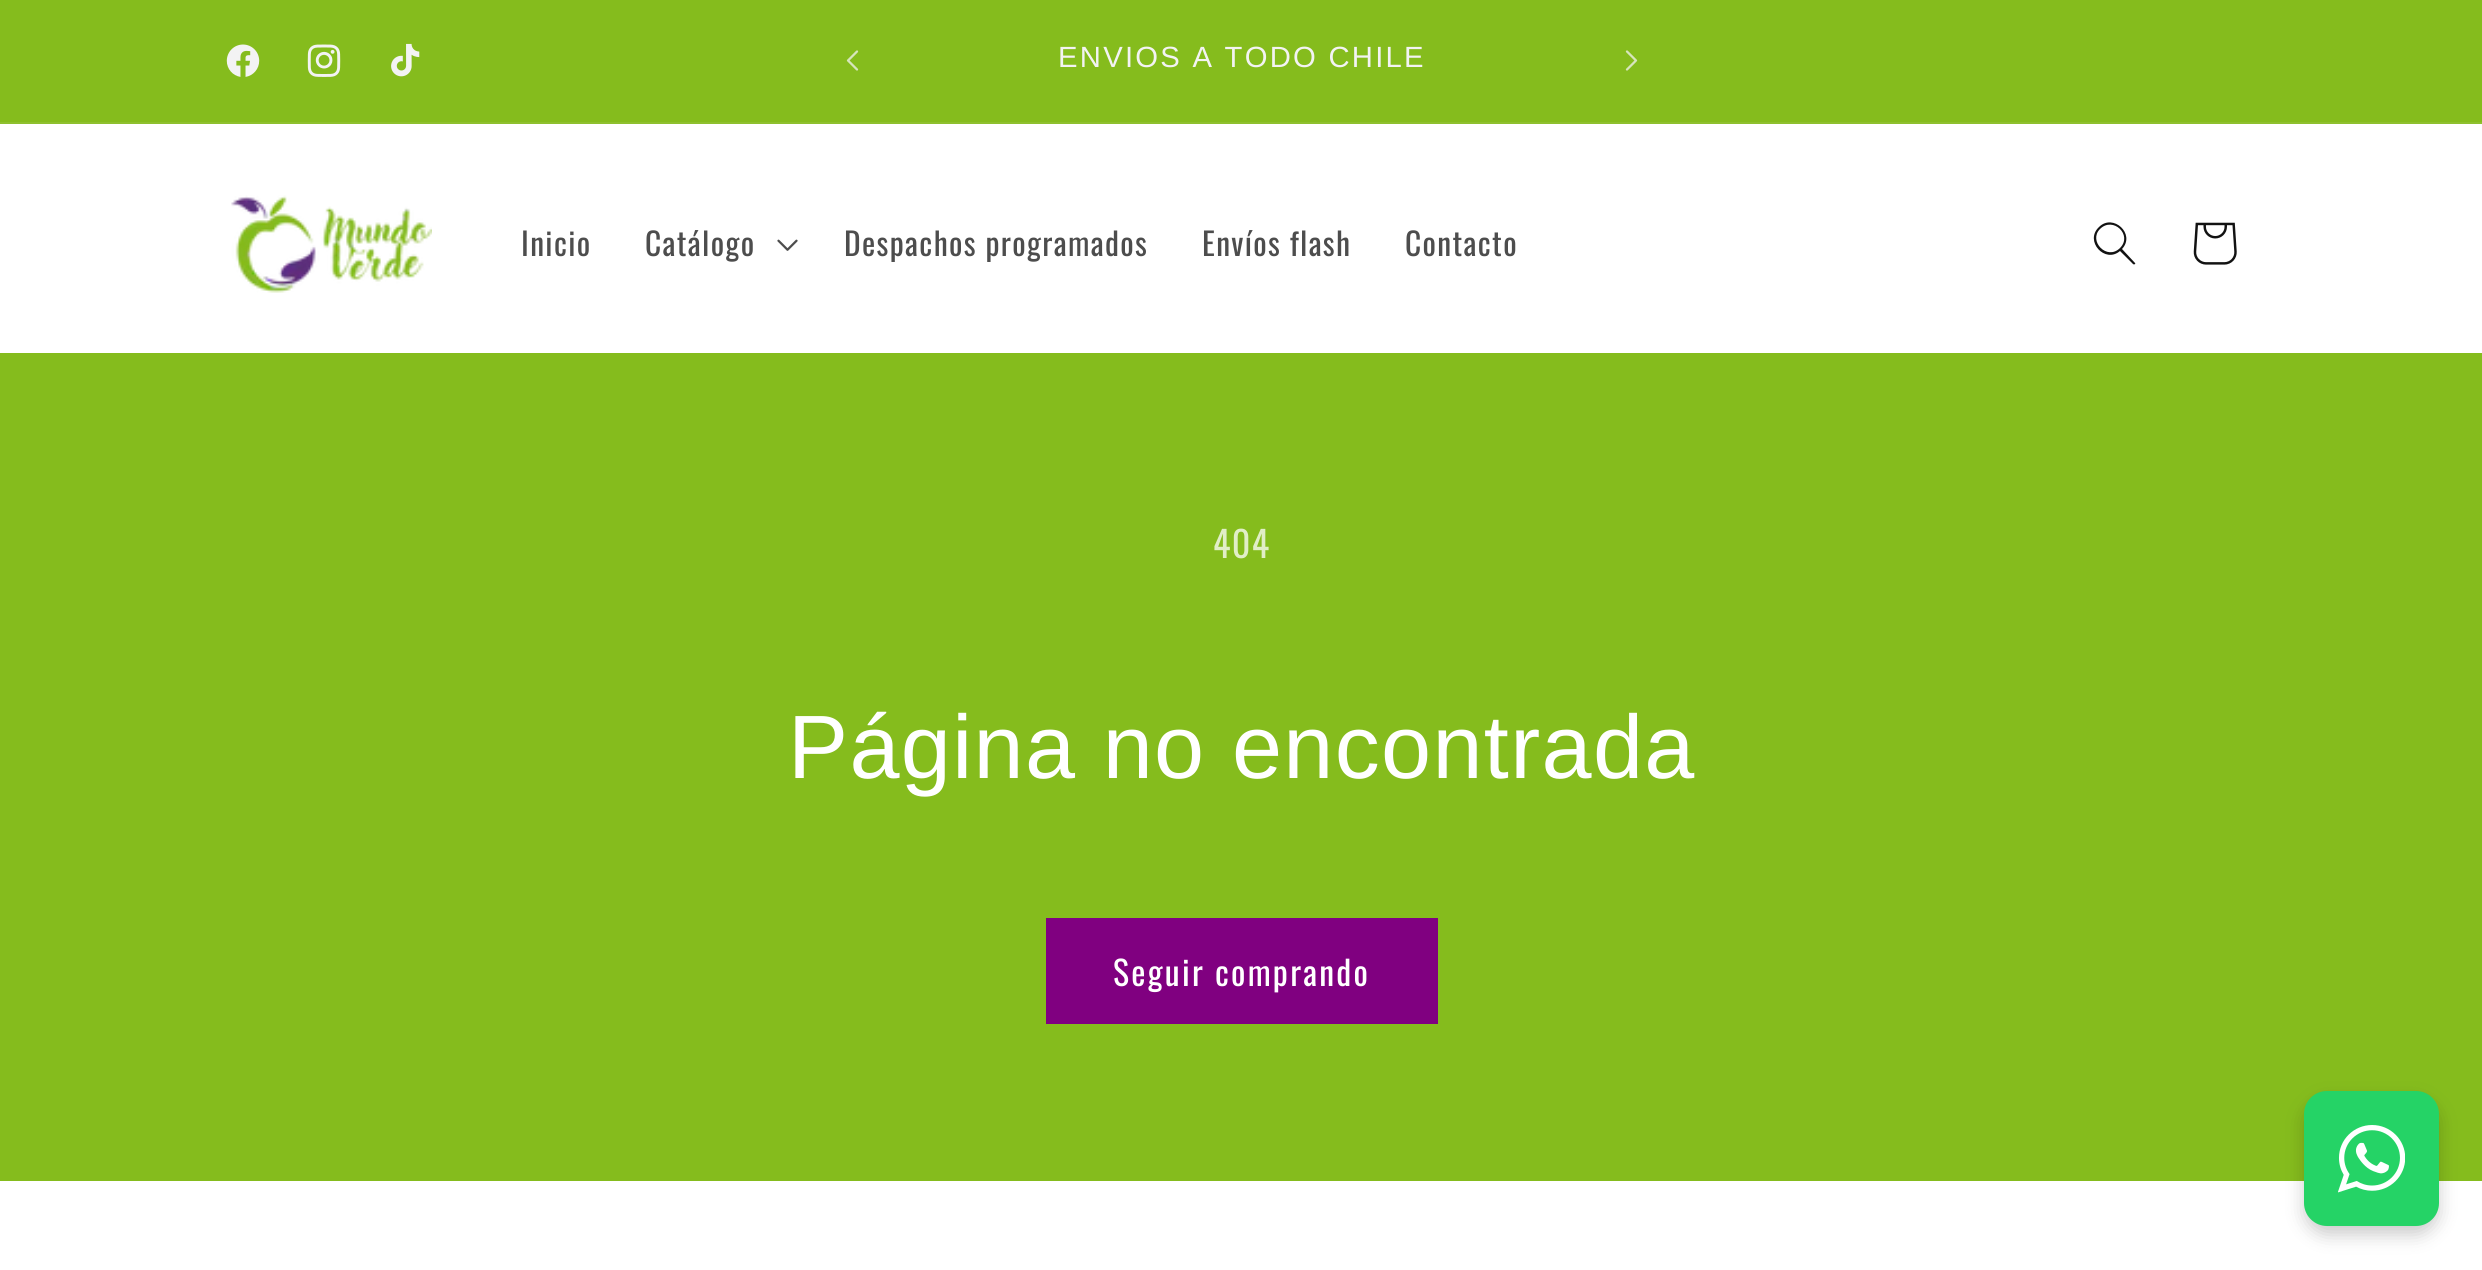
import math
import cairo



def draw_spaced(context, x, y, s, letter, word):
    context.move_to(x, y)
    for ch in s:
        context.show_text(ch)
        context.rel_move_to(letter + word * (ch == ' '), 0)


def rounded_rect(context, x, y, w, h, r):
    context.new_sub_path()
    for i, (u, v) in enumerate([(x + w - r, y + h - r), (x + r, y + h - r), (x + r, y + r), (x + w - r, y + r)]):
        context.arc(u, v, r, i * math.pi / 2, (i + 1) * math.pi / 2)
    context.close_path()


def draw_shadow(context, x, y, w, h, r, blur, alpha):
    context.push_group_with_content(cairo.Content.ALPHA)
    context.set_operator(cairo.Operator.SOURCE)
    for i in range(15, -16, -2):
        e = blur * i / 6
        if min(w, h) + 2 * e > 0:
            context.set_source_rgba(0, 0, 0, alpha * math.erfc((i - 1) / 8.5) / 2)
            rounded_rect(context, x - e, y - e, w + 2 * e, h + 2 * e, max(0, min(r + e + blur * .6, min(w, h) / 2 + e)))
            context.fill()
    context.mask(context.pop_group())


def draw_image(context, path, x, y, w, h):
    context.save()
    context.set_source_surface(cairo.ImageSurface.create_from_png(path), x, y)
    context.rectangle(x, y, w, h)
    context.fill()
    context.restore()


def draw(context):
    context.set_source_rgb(133 / 255, 188 / 255, 29 / 255)
    context.paint()
    context.set_source_rgb(142 / 255, 192 / 255, 46 / 255)
    context.rectangle(0, 122, 2482, 2)
    context.fill()
    draw_image(context, "images/1.png", 226, 44, 34, 33)
    draw_image(context, "images/2.png", 307, 44, 34, 33)
    draw_image(context, "images/3.png", 391, 43, 29, 34)
    draw_image(context, "images/4.png", 846, 50, 13, 21)
    draw_image(context, "images/5.png", 1625, 50, 13, 21)
    context.set_source_rgb(1, 1, 1)
    context.rectangle(0, 124, 2482, 229)
    context.fill()
    draw_image(context, "images/6.png", 231, 195, 201, 98)
    draw_image(context, "images/7.png", 777, 239, 21, 12)
    context.set_source_rgb(18 / 255, 18 / 255, 18 / 255)
    context.set_fill_rule(cairo.FillRule.EVEN_ODD)
    context.new_path()
    context.move_to(2120, 248)
    context.curve_to(2107, 261, 2088, 241, 2100, 229)
    context.curve_to(2113, 216, 2133, 235, 2120, 248)
    context.move_to(2120, 251)
    context.curve_to(2105, 264, 2084, 241, 2099, 227)
    context.curve_to(2113, 213, 2136, 234, 2122, 249)
    context.line_to(2135, 263)
    context.curve_to(2136, 264, 2134, 265, 2133, 264)
    context.close_path()
    context.fill()
    draw_image(context, "images/8.png", 2193, 222, 44, 43)
    context.set_source_rgb(128 / 255, 0, 128 / 255)
    context.rectangle(1046, 918, 392, 106)
    context.fill()
    context.set_source_rgb(1, 1, 1)
    context.rectangle(0, 1181, 2482, 89)
    context.fill()
    context.set_source_rgb(0, 0, 0)
    draw_shadow(context, 2304, 1100, 135, 135, 23, 9, 0.2)
    context.set_source_rgb(37 / 255, 211 / 255, 102 / 255)
    rounded_rect(context, 2304, 1091, 135, 135, 23)
    context.fill()
    draw_image(context, "images/9.png", 2338, 1125, 67, 68)
    context.select_font_face("Liberation Sans")
    context.set_font_size(29.25)
    context.set_source_rgb(243 / 255, 243 / 255, 243 / 255)
    draw_spaced(context, 1058, 67, "ENVIOS A TODO CHILE", 2.25, 0)
    context.select_font_face("Oswald")
    context.set_font_size(31.5)
    context.set_source_rgb(77 / 255, 77 / 255, 77 / 255)
    draw_spaced(context, 521, 256, "Inicio", 1.35, 0)
    draw_spaced(context, 645, 256, "Catálogo", 1.35, 0)
    draw_spaced(context, 844, 256, "Despachos programados", 1.35, 0)
    draw_spaced(context, 1202, 256, "Envíos flash", 1.35, 0)
    draw_spaced(context, 1405, 256, "Contacto", 1.35, 0)
    context.set_font_size(36)
    context.set_source_rgb(225 / 255, 238 / 255, 199 / 255)
    draw_spaced(context, 1213, 558, "404", 1.35, 0)
    context.select_font_face("Liberation Sans")
    context.set_font_size(90)
    context.set_source_rgb(1, 1, 1)
    draw_spaced(context, 788, 778, "Página no encontrada", 1.35, 0)
    context.select_font_face("Oswald")
    context.set_font_size(33.75)
    draw_spaced(context, 1113, 986, "Seguir comprando", 2.25, 0)


surface = cairo.ImageSurface(cairo.Format.RGB24, 2482, 1270)
context = cairo.Context(surface)
options = cairo.FontOptions()
options.set_hint_metrics(cairo.HintMetrics.OFF)
options.set_hint_style(cairo.HintStyle.NONE)
context.set_font_options(options)
context.set_miter_limit(4)
draw(context)
surface.write_to_png("out.png")
